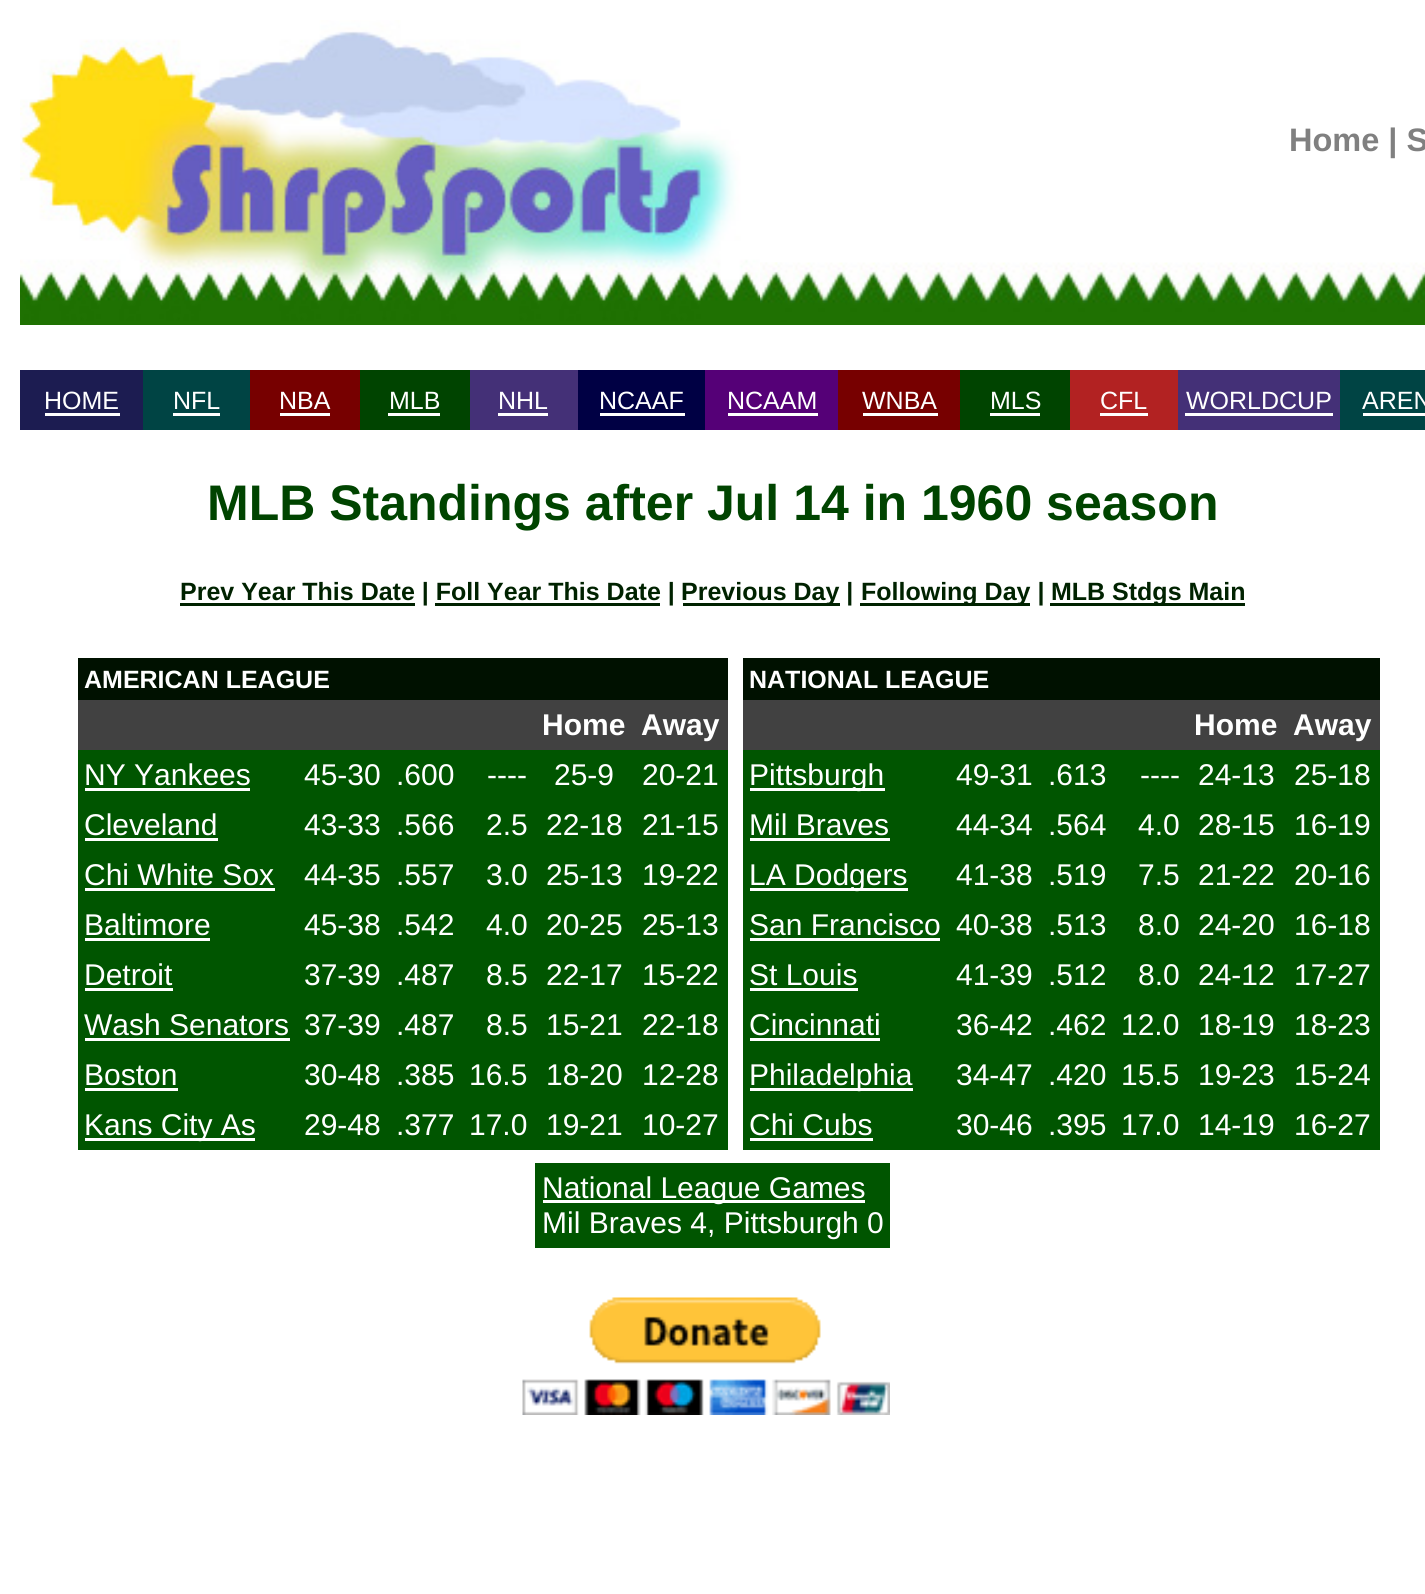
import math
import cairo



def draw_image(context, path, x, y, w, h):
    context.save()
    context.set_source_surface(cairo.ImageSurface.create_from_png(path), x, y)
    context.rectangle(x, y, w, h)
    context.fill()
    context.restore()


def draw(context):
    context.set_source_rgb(1, 1, 1)
    context.paint()
    draw_image(context, "images/1.png", 20, 20, 740, 305)
    draw_image(context, "images/2.png", 760, 262, 665, 63)
    draw_image(context, "images/3.png", 760, 262, 33, 39)
    context.set_source_rgb(28 / 255, 28 / 255, 81 / 255)
    context.rectangle(20, 370, 123, 60)
    context.fill()
    context.set_source_rgb(1, 1, 1)
    context.rectangle(45, 413, 75, 3)
    context.fill()
    context.set_source_rgb(0, 68 / 255, 68 / 255)
    context.rectangle(143, 370, 107, 60)
    context.fill()
    context.set_source_rgb(1, 1, 1)
    context.rectangle(173, 413, 47, 3)
    context.fill()
    context.set_source_rgb(119 / 255, 0, 0)
    context.rectangle(250, 370, 110, 60)
    context.fill()
    context.set_source_rgb(1, 1, 1)
    context.rectangle(280, 413, 50, 3)
    context.fill()
    context.set_source_rgb(0, 68 / 255, 0)
    context.rectangle(360, 370, 110, 60)
    context.fill()
    context.set_source_rgb(1, 1, 1)
    context.rectangle(388, 413, 52, 3)
    context.fill()
    context.set_source_rgb(68 / 255, 48 / 255, 119 / 255)
    context.rectangle(470, 370, 108, 60)
    context.fill()
    context.set_source_rgb(1, 1, 1)
    context.rectangle(498, 413, 50, 3)
    context.fill()
    context.set_source_rgb(0, 0, 68 / 255)
    context.rectangle(578, 370, 127, 60)
    context.fill()
    context.set_source_rgb(1, 1, 1)
    context.rectangle(600, 413, 85, 3)
    context.fill()
    context.set_source_rgb(85 / 255, 0, 119 / 255)
    context.rectangle(705, 370, 133, 60)
    context.fill()
    context.set_source_rgb(1, 1, 1)
    context.rectangle(728, 413, 90, 3)
    context.fill()
    context.set_source_rgb(119 / 255, 0, 0)
    context.rectangle(838, 370, 122, 60)
    context.fill()
    context.set_source_rgb(1, 1, 1)
    context.rectangle(863, 413, 75, 3)
    context.fill()
    context.set_source_rgb(0, 68 / 255, 0)
    context.rectangle(960, 370, 110, 60)
    context.fill()
    context.set_source_rgb(1, 1, 1)
    context.rectangle(990, 413, 50, 3)
    context.fill()
    context.set_source_rgb(178 / 255, 34 / 255, 34 / 255)
    context.rectangle(1070, 370, 108, 60)
    context.fill()
    context.set_source_rgb(1, 1, 1)
    context.rectangle(1100, 413, 48, 3)
    context.fill()
    context.set_source_rgb(68 / 255, 48 / 255, 119 / 255)
    context.rectangle(1178, 370, 162, 60)
    context.fill()
    context.set_source_rgb(1, 1, 1)
    context.rectangle(1185, 413, 148, 3)
    context.fill()
    context.set_source_rgb(0, 68 / 255, 68 / 255)
    context.rectangle(1340, 370, 85, 60)
    context.fill()
    context.set_source_rgb(1, 1, 1)
    context.rectangle(1363, 413, 62, 3)
    context.fill()
    context.set_source_rgb(0, 34 / 255, 0)
    context.rectangle(180, 603, 235, 3)
    context.fill()
    context.rectangle(683, 603, 157, 3)
    context.fill()
    context.rectangle(860, 603, 170, 3)
    context.fill()
    context.rectangle(1050, 603, 195, 3)
    context.fill()
    context.rectangle(435, 603, 225, 3)
    context.fill()
    context.set_source_rgb(0, 17 / 255, 0)
    context.rectangle(78, 658, 650, 42)
    context.fill()
    context.set_source_rgb(65 / 255, 65 / 255, 65 / 255)
    context.rectangle(78, 700, 650, 50)
    context.fill()
    context.set_source_rgb(0, 85 / 255, 0)
    context.rectangle(78, 750, 650, 400)
    context.fill()
    context.set_source_rgb(1, 1, 1)
    context.rectangle(85, 788, 165, 3)
    context.fill()
    context.rectangle(85, 838, 133, 3)
    context.fill()
    context.rectangle(85, 888, 190, 3)
    context.fill()
    context.rectangle(85, 938, 125, 3)
    context.fill()
    context.rectangle(85, 988, 88, 3)
    context.fill()
    context.rectangle(85, 1038, 205, 3)
    context.fill()
    context.rectangle(85, 1088, 93, 3)
    context.fill()
    context.rectangle(85, 1138, 170, 3)
    context.fill()
    context.set_source_rgb(0, 17 / 255, 0)
    context.rectangle(743, 658, 637, 42)
    context.fill()
    context.set_source_rgb(65 / 255, 65 / 255, 65 / 255)
    context.rectangle(743, 700, 637, 50)
    context.fill()
    context.set_source_rgb(0, 85 / 255, 0)
    context.rectangle(743, 750, 637, 400)
    context.fill()
    context.set_source_rgb(1, 1, 1)
    context.rectangle(750, 788, 135, 3)
    context.fill()
    context.rectangle(750, 838, 140, 3)
    context.fill()
    context.rectangle(750, 888, 158, 3)
    context.fill()
    context.rectangle(750, 938, 190, 3)
    context.fill()
    context.rectangle(750, 988, 108, 3)
    context.fill()
    context.rectangle(750, 1038, 130, 3)
    context.fill()
    context.rectangle(750, 1088, 163, 3)
    context.fill()
    context.rectangle(750, 1138, 123, 3)
    context.fill()
    context.set_source_rgb(0, 85 / 255, 0)
    context.rectangle(535, 1163, 355, 85)
    context.fill()
    context.set_source_rgb(1, 1, 1)
    context.rectangle(543, 1200, 322, 3)
    context.fill()
    draw_image(context, "images/4.png", 522, 1297, 368, 118)
    context.select_font_face("Liberation Sans", cairo.FontSlant.NORMAL, cairo.FontWeight.BOLD)
    context.set_font_size(32.5)
    context.set_source_rgb(128 / 255, 128 / 255, 128 / 255)
    context.move_to(1289, 151)
    context.show_text("Home | S")
    context.select_font_face("Liberation Sans")
    context.set_font_size(25)
    context.set_source_rgb(1, 1, 1)
    context.move_to(44, 409)
    context.show_text("HOME")
    context.move_to(173, 409)
    context.show_text("NFL")
    context.move_to(279, 409)
    context.show_text("NBA")
    context.move_to(389, 409)
    context.show_text("MLB")
    context.move_to(498, 409)
    context.show_text("NHL")
    context.move_to(599, 409)
    context.show_text("NCAAF")
    context.move_to(727, 409)
    context.show_text("NCAAM")
    context.move_to(862, 409)
    context.show_text("WNBA")
    context.move_to(990, 409)
    context.show_text("MLS")
    context.move_to(1100, 409)
    context.show_text("CFL")
    context.move_to(1186, 409)
    context.show_text("WORLDCUP")
    context.move_to(1362, 409)
    context.show_text("AREN")
    context.select_font_face("Liberation Sans", cairo.FontSlant.NORMAL, cairo.FontWeight.BOLD)
    context.set_font_size(50)
    context.set_source_rgb(0, 68 / 255, 0)
    context.move_to(207, 520)
    context.show_text("MLB Standings after Jul 14 in 1960 season")
    context.set_font_size(25)
    context.set_source_rgb(0, 34 / 255, 0)
    context.move_to(180, 600)
    context.show_text("Prev Year This Date | Foll Year This Date |")
    context.move_to(681, 600)
    context.show_text("Previous Day |")
    context.move_to(861, 600)
    context.show_text("Following Day |")
    context.move_to(1051, 600)
    context.show_text("MLB Stdgs Main")
    context.set_source_rgb(1, 1, 1)
    context.move_to(84, 688)
    context.show_text("AMERICAN LEAGUE")
    context.set_font_size(30)
    context.move_to(542, 735)
    context.show_text("Home")
    context.move_to(641, 735)
    context.show_text("Away")
    context.select_font_face("Liberation Sans")
    context.move_to(84, 785)
    context.show_text("NY Yankees")
    context.move_to(304, 785)
    context.show_text("45-30")
    context.move_to(396, 785)
    context.show_text(".600")
    context.move_to(487, 785)
    context.show_text("----")
    context.move_to(554, 785)
    context.show_text("25-9")
    context.move_to(642, 785)
    context.show_text("20-21")
    context.move_to(84, 835)
    context.show_text("Cleveland")
    context.move_to(304, 835)
    context.show_text("43-33")
    context.move_to(396, 835)
    context.show_text(".566")
    context.move_to(486, 835)
    context.show_text("2.5")
    context.move_to(546, 835)
    context.show_text("22-18")
    context.move_to(642, 835)
    context.show_text("21-15")
    context.move_to(84, 885)
    context.show_text("Chi White Sox")
    context.move_to(304, 885)
    context.show_text("44-35")
    context.move_to(396, 885)
    context.show_text(".557")
    context.move_to(486, 885)
    context.show_text("3.0")
    context.move_to(546, 885)
    context.show_text("25-13")
    context.move_to(642, 885)
    context.show_text("19-22")
    context.move_to(84, 935)
    context.show_text("Baltimore")
    context.move_to(304, 935)
    context.show_text("45-38")
    context.move_to(396, 935)
    context.show_text(".542")
    context.move_to(486, 935)
    context.show_text("4.0")
    context.move_to(546, 935)
    context.show_text("20-25")
    context.move_to(642, 935)
    context.show_text("25-13")
    context.move_to(84, 985)
    context.show_text("Detroit")
    context.move_to(304, 985)
    context.show_text("37-39")
    context.move_to(396, 985)
    context.show_text(".487")
    context.move_to(486, 985)
    context.show_text("8.5")
    context.move_to(546, 985)
    context.show_text("22-17")
    context.move_to(642, 985)
    context.show_text("15-22")
    context.move_to(84, 1035)
    context.show_text("Wash Senators")
    context.move_to(304, 1035)
    context.show_text("37-39")
    context.move_to(396, 1035)
    context.show_text(".487")
    context.move_to(486, 1035)
    context.show_text("8.5")
    context.move_to(546, 1035)
    context.show_text("15-21")
    context.move_to(642, 1035)
    context.show_text("22-18")
    context.move_to(84, 1085)
    context.show_text("Boston")
    context.move_to(304, 1085)
    context.show_text("30-48")
    context.move_to(396, 1085)
    context.show_text(".385")
    context.move_to(469, 1085)
    context.show_text("16.5")
    context.move_to(546, 1085)
    context.show_text("18-20")
    context.move_to(642, 1085)
    context.show_text("12-28")
    context.move_to(84, 1135)
    context.show_text("Kans City As")
    context.move_to(304, 1135)
    context.show_text("29-48")
    context.move_to(396, 1135)
    context.show_text(".377")
    context.move_to(469, 1135)
    context.show_text("17.0")
    context.move_to(546, 1135)
    context.show_text("19-21")
    context.move_to(642, 1135)
    context.show_text("10-27")
    context.select_font_face("Liberation Sans", cairo.FontSlant.NORMAL, cairo.FontWeight.BOLD)
    context.set_font_size(25)
    context.move_to(749, 688)
    context.show_text("NATIONAL LEAGUE")
    context.set_font_size(30)
    context.move_to(1194, 735)
    context.show_text("Home")
    context.move_to(1293, 735)
    context.show_text("Away")
    context.select_font_face("Liberation Sans")
    context.move_to(749, 785)
    context.show_text("Pittsburgh")
    context.move_to(956, 785)
    context.show_text("49-31")
    context.move_to(1048, 785)
    context.show_text(".613")
    context.move_to(1140, 785)
    context.show_text("----")
    context.move_to(1198, 785)
    context.show_text("24-13")
    context.move_to(1294, 785)
    context.show_text("25-18")
    context.move_to(749, 835)
    context.show_text("Mil Braves")
    context.move_to(956, 835)
    context.show_text("44-34")
    context.move_to(1048, 835)
    context.show_text(".564")
    context.move_to(1138, 835)
    context.show_text("4.0")
    context.move_to(1198, 835)
    context.show_text("28-15")
    context.move_to(1294, 835)
    context.show_text("16-19")
    context.move_to(749, 885)
    context.show_text("LA Dodgers")
    context.move_to(956, 885)
    context.show_text("41-38")
    context.move_to(1048, 885)
    context.show_text(".519")
    context.move_to(1138, 885)
    context.show_text("7.5")
    context.move_to(1198, 885)
    context.show_text("21-22")
    context.move_to(1294, 885)
    context.show_text("20-16")
    context.move_to(749, 935)
    context.show_text("San Francisco")
    context.move_to(956, 935)
    context.show_text("40-38")
    context.move_to(1048, 935)
    context.show_text(".513")
    context.move_to(1138, 935)
    context.show_text("8.0")
    context.move_to(1198, 935)
    context.show_text("24-20")
    context.move_to(1294, 935)
    context.show_text("16-18")
    context.move_to(749, 985)
    context.show_text("St Louis")
    context.move_to(956, 985)
    context.show_text("41-39")
    context.move_to(1048, 985)
    context.show_text(".512")
    context.move_to(1138, 985)
    context.show_text("8.0")
    context.move_to(1198, 985)
    context.show_text("24-12")
    context.move_to(1294, 985)
    context.show_text("17-27")
    context.move_to(749, 1035)
    context.show_text("Cincinnati")
    context.move_to(956, 1035)
    context.show_text("36-42")
    context.move_to(1048, 1035)
    context.show_text(".462")
    context.move_to(1121, 1035)
    context.show_text("12.0")
    context.move_to(1198, 1035)
    context.show_text("18-19")
    context.move_to(1294, 1035)
    context.show_text("18-23")
    context.move_to(749, 1085)
    context.show_text("Philadelphia")
    context.move_to(956, 1085)
    context.show_text("34-47")
    context.move_to(1048, 1085)
    context.show_text(".420")
    context.move_to(1121, 1085)
    context.show_text("15.5")
    context.move_to(1198, 1085)
    context.show_text("19-23")
    context.move_to(1294, 1085)
    context.show_text("15-24")
    context.move_to(749, 1135)
    context.show_text("Chi Cubs")
    context.move_to(956, 1135)
    context.show_text("30-46")
    context.move_to(1048, 1135)
    context.show_text(".395")
    context.move_to(1121, 1135)
    context.show_text("17.0")
    context.move_to(1198, 1135)
    context.show_text("14-19")
    context.move_to(1294, 1135)
    context.show_text("16-27")
    context.move_to(542, 1198)
    context.show_text("National League Games")
    context.move_to(542, 1233)
    context.show_text("Mil Braves 4, Pittsburgh 0")


surface = cairo.ImageSurface(cairo.Format.RGB24, 1425, 1594)
context = cairo.Context(surface)
options = cairo.FontOptions()
options.set_hint_metrics(cairo.HintMetrics.OFF)
options.set_hint_style(cairo.HintStyle.NONE)
context.set_font_options(options)
context.set_miter_limit(4)
draw(context)
surface.write_to_png("out.png")
